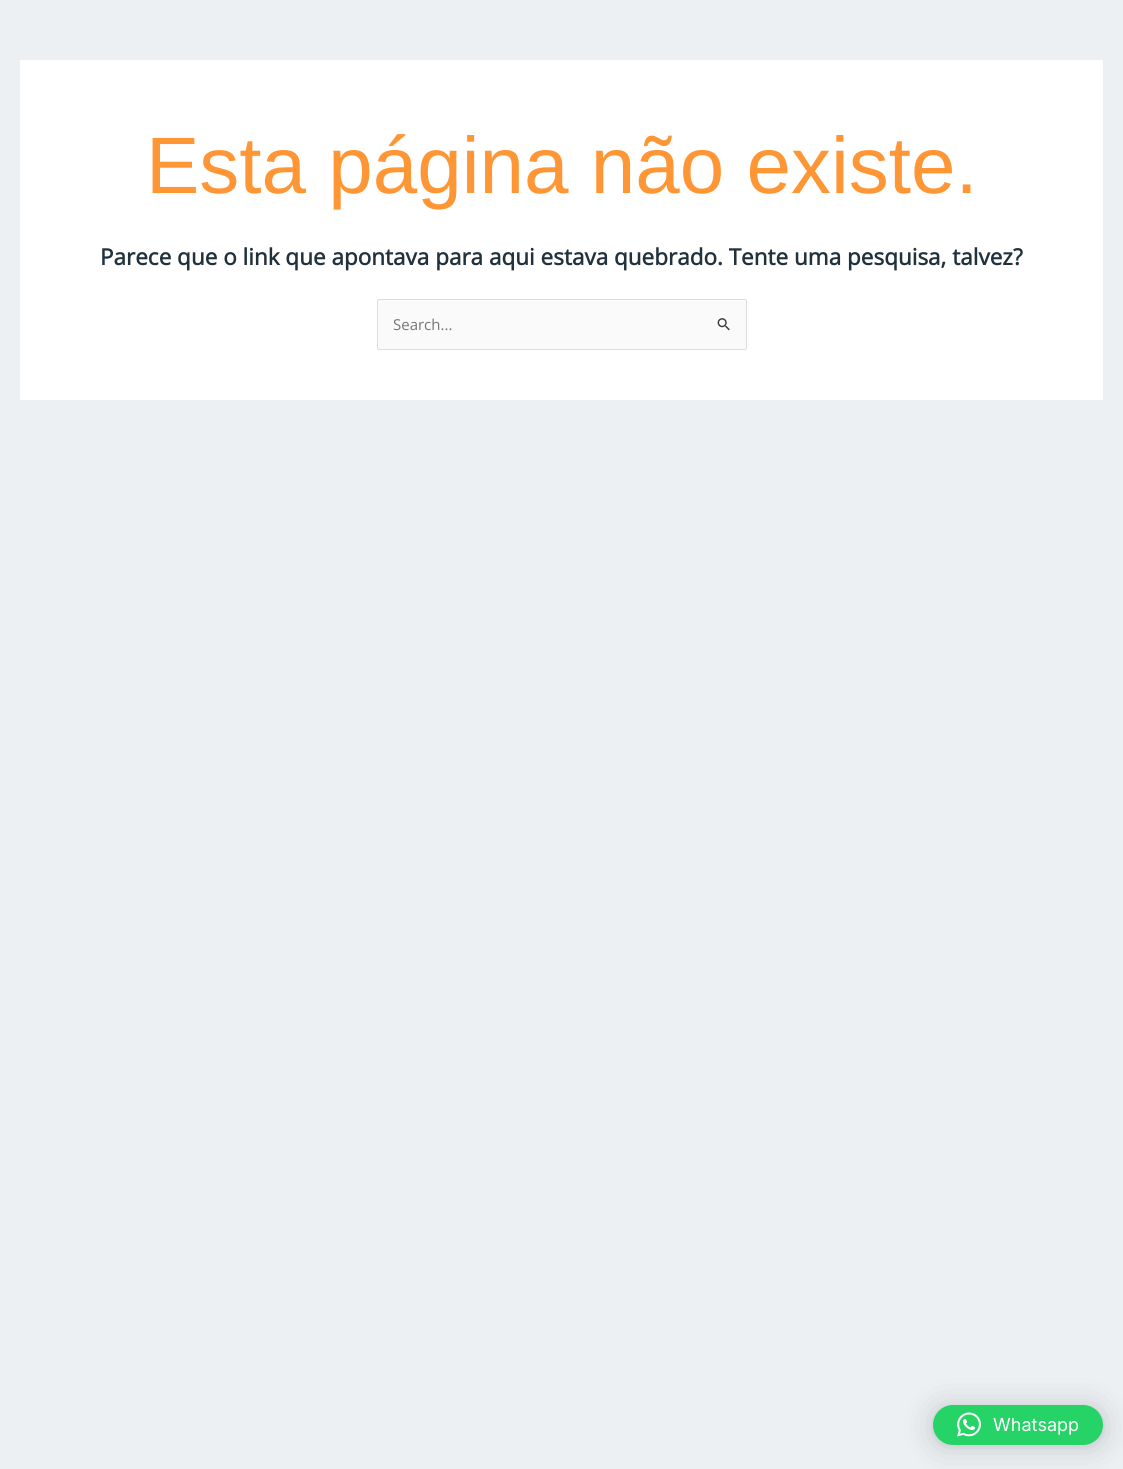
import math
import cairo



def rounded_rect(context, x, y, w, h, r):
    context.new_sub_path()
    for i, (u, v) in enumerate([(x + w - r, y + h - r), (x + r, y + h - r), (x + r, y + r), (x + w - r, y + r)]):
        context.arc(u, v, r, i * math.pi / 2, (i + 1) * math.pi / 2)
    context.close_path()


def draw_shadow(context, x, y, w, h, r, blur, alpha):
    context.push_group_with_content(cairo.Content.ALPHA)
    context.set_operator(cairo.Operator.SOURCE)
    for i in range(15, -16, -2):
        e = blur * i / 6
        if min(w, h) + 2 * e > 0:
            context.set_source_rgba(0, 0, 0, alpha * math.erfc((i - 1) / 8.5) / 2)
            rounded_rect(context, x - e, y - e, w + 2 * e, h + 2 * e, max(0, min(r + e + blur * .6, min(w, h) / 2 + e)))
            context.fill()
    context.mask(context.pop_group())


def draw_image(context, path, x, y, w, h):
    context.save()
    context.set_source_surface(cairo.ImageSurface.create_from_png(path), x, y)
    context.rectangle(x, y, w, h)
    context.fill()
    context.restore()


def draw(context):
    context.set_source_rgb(236 / 255, 240 / 255, 242 / 255)
    context.paint()
    context.set_source_rgb(1, 1, 1)
    context.rectangle(20, 60, 1083, 340)
    context.fill()
    context.set_source_rgb(250 / 255, 250 / 255, 250 / 255)
    rounded_rect(context, 377.5, 299.5, 369, 50, 1.5)
    context.fill_preserve()
    context.set_source_rgb(221 / 255, 221 / 255, 221 / 255)
    context.set_line_width(1)
    context.stroke()
    draw_image(context, "images/1.png", 717, 318, 13, 13)
    context.set_source_rgb(0, 0, 0)
    draw_shadow(context, 933, 1407, 170, 40, 20, 16, 0.16)
    draw_shadow(context, 933, 1406, 170, 40, 20, 3, 0.06)
    context.set_source_rgb(37 / 255, 211 / 255, 102 / 255)
    rounded_rect(context, 933, 1405, 170, 40, 20)
    context.fill()
    draw_image(context, "images/2.png", 957, 1412, 24, 25)
    context.select_font_face("Liberation Sans")
    context.set_font_size(80)
    context.set_source_rgb(1, 150 / 255, 53 / 255)
    context.move_to(146, 193)
    context.show_text("Esta página não existe.")
    context.select_font_face("Open Sans", cairo.FontSlant.NORMAL, cairo.FontWeight.BOLD)
    context.set_font_size(22.5)
    context.set_source_rgb(34 / 255, 50 / 255, 61 / 255)
    context.move_to(100, 265)
    context.show_text("Parece que o link que apontava para aqui estava quebrado. Tente uma pesquisa, talvez?")
    context.select_font_face("Open Sans")
    context.set_font_size(15)
    context.set_source_rgb(117 / 255, 117 / 255, 117 / 255)
    context.move_to(393, 330)
    context.show_text("Search...")
    context.select_font_face("Inter")
    context.set_font_size(18)
    context.set_source_rgb(1, 1, 1)
    context.move_to(993, 1431)
    context.show_text("Whatsapp")


surface = cairo.ImageSurface(cairo.Format.RGB24, 1123, 1469)
context = cairo.Context(surface)
options = cairo.FontOptions()
options.set_hint_metrics(cairo.HintMetrics.OFF)
options.set_hint_style(cairo.HintStyle.NONE)
context.set_font_options(options)
context.set_miter_limit(4)
draw(context)
surface.write_to_png("out.png")
